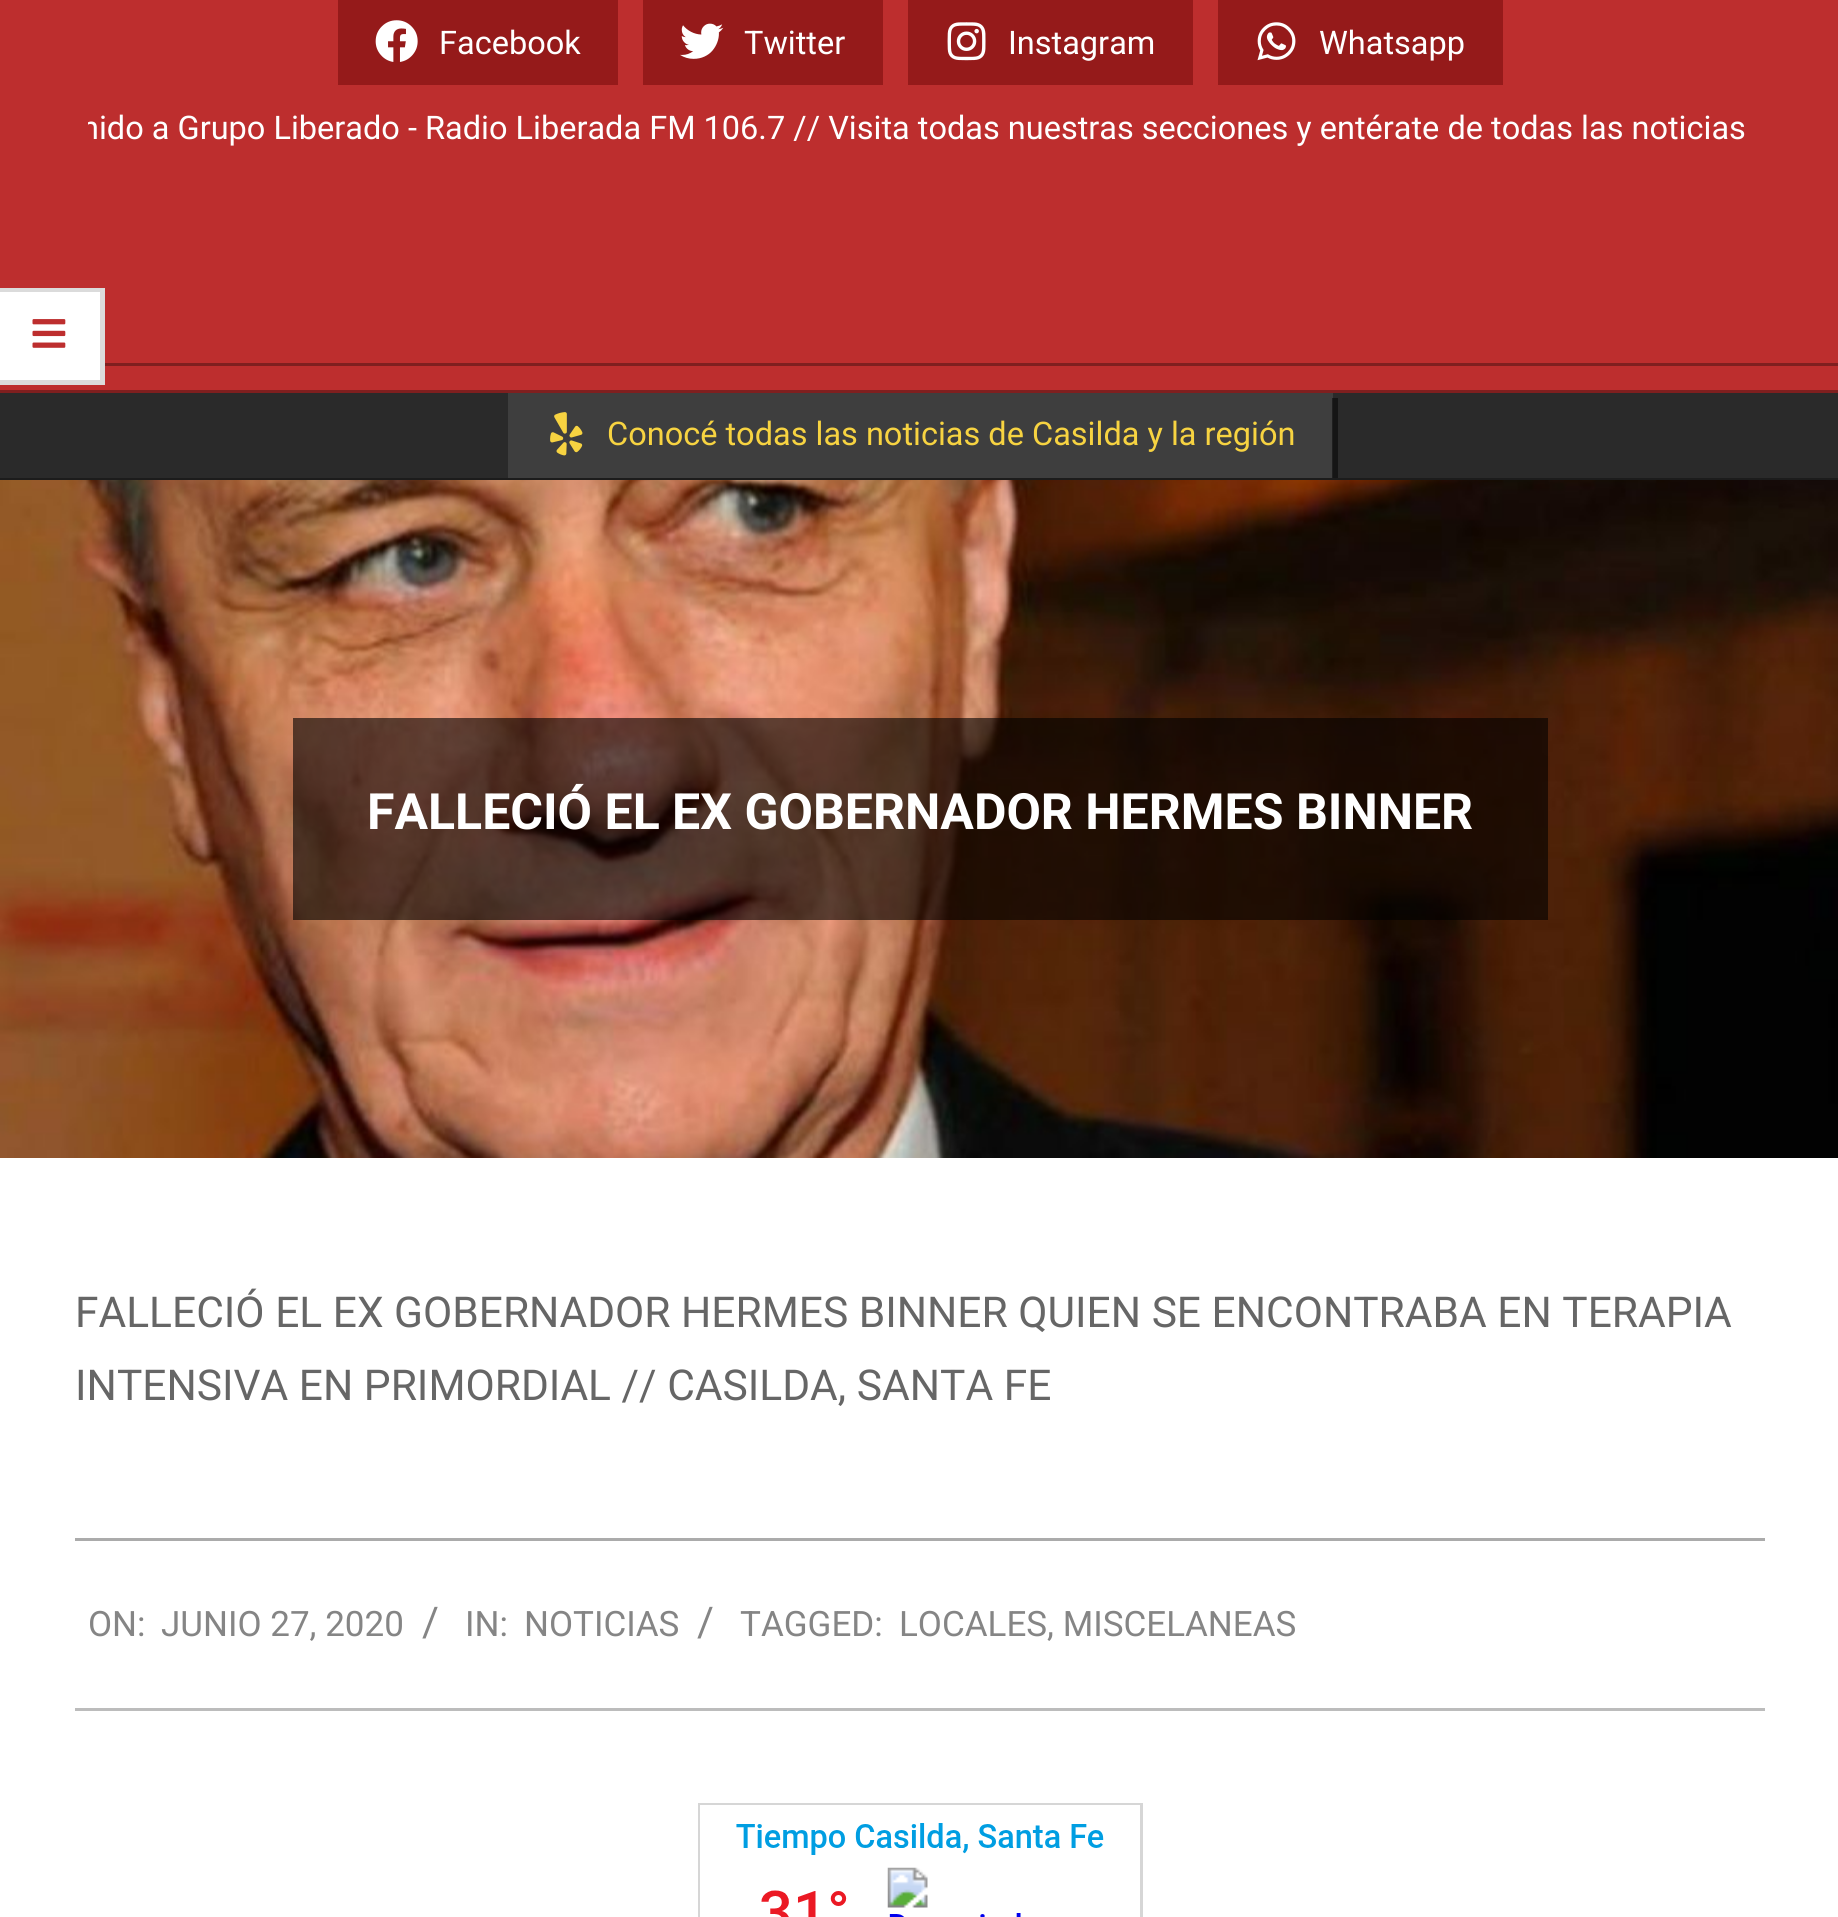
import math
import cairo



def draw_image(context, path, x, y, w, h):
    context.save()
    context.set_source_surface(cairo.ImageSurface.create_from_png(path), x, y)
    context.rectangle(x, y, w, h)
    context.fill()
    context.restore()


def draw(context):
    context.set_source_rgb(189 / 255, 46 / 255, 46 / 255)
    context.paint()
    context.set_source_rgb(149 / 255, 26 / 255, 26 / 255)
    context.rectangle(338, 0, 280, 85)
    context.fill()
    draw_image(context, "images/1.png", 375, 20, 43, 42)
    context.rectangle(643, 0, 240, 85)
    context.fill()
    draw_image(context, "images/2.png", 680, 23, 44, 36)
    context.rectangle(908, 0, 285, 85)
    context.fill()
    draw_image(context, "images/3.png", 947, 22, 39, 39)
    context.rectangle(1218, 0, 285, 85)
    context.fill()
    draw_image(context, "images/4.png", 1257, 22, 39, 39)
    context.set_source_rgb(127 / 255, 31 / 255, 31 / 255)
    context.rectangle(0, 390, 1838, 3)
    context.fill()
    context.set_source_rgb(1, 1, 1)
    context.rectangle(0, 288, 105, 97)
    context.fill()
    context.set_source_rgb(219 / 255, 219 / 255, 219 / 255)
    context.new_path()
    context.move_to(0, 288)
    context.line_to(105, 288)
    context.line_to(100, 292)
    context.line_to(0, 292)
    context.close_path()
    context.fill()
    context.set_source_rgba(0, 0, 0, 0.14)
    context.new_path()
    context.move_to(105, 288)
    context.line_to(105, 385)
    context.line_to(100, 380)
    context.line_to(100, 292)
    context.close_path()
    context.fill()
    context.new_path()
    context.move_to(105, 385)
    context.line_to(0, 385)
    context.line_to(0, 380)
    context.line_to(100, 380)
    context.close_path()
    context.fill()
    draw_image(context, "images/5.png", 32, 319, 34, 29)
    context.set_source_rgb(127 / 255, 31 / 255, 31 / 255)
    context.rectangle(105, 363, 1733, 3)
    context.fill()
    context.set_source_rgb(42 / 255, 42 / 255, 42 / 255)
    context.rectangle(0, 393, 1838, 85)
    context.fill()
    context.set_source_rgb(28 / 255, 28 / 255, 28 / 255)
    context.rectangle(0, 478, 1838, 2)
    context.fill()
    context.set_source_rgb(62 / 255, 62 / 255, 62 / 255)
    context.rectangle(508, 393, 825, 85)
    context.fill()
    draw_image(context, "images/6.png", 550, 412, 33, 44)
    context.save()
    context.rectangle(0, 393, 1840, 85)
    context.clip()
    context.set_source_rgba(0, 0, 0, 0.5)
    context.new_path()
    context.move_to(513, 478)
    context.line_to(513, 483)
    context.line_to(1338, 483)
    context.line_to(1338, 398)
    context.line_to(1332, 398)
    context.line_to(1332, 478)
    context.close_path()
    context.fill()
    context.restore()
    context.set_source_rgb(1, 1, 1)
    context.rectangle(0, 1158, 1838, 759)
    context.fill()
    draw_image(context, "images/7.png", 0, 480, 1838, 678)
    context.set_source_rgba(0, 0, 0, 0.6)
    context.rectangle(293, 718, 1255, 202)
    context.fill()
    context.set_source_rgb(171 / 255, 171 / 255, 171 / 255)
    context.rectangle(75, 1538, 1690, 3)
    context.fill()
    context.set_source_rgb(188 / 255, 188 / 255, 188 / 255)
    context.rectangle(75, 1708, 1690, 3)
    context.fill()
    context.rectangle(699.5, 1804.5, 442, 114)
    context.set_source_rgb(214 / 255, 214 / 255, 214 / 255)
    context.set_line_width(3)
    context.stroke()
    draw_image(context, "images/8.png", 700, 1805, 440, 112)
    context.select_font_face("Roboto")
    context.set_font_size(32.5)
    context.set_source_rgb(1, 1, 1)
    context.move_to(439, 54)
    context.show_text("Facebook")
    context.move_to(744, 54)
    context.show_text("Twitter")
    context.move_to(1008, 54)
    context.show_text("Instagram")
    context.move_to(1319, 54)
    context.show_text("Whatsapp")
    context.save()
    context.rectangle(88, 103, 1665, 52)
    context.clip()
    context.move_to(81, 139)
    context.show_text("nido a Grupo Liberado - Radio Liberada FM 106.7 // Visita todas nuestras secciones y entérate de todas las noticias")
    context.restore()
    context.set_source_rgb(247 / 255, 211 / 255, 65 / 255)
    context.move_to(607, 445)
    context.show_text("Conocé todas las noticias de Casilda y la región")
    context.select_font_face("Roboto", cairo.FontSlant.NORMAL, cairo.FontWeight.BOLD)
    context.set_font_size(50)
    context.set_source_rgb(1, 1, 1)
    context.move_to(367, 829)
    context.show_text("FALLECIÓ EL EX GOBERNADOR HERMES BINNER")
    context.select_font_face("Roboto")
    context.set_font_size(42.5)
    context.set_source_rgb(102 / 255, 102 / 255, 102 / 255)
    context.move_to(75, 1327)
    context.show_text("FALLECIÓ EL EX GOBERNADOR HERMES BINNER QUIEN SE ENCONTRABA EN TERAPIA")
    context.move_to(75, 1400)
    context.show_text("INTENSIVA EN PRIMORDIAL // CASILDA, SANTA FE")
    context.set_font_size(35)
    context.set_source_rgb(133 / 255, 133 / 255, 133 / 255)
    context.move_to(88, 1636)
    context.show_text("ON:")
    context.move_to(161, 1636)
    context.show_text("JUNIO 27, 2020")
    context.set_font_size(41)
    context.move_to(422, 1636)
    context.show_text("/")
    context.set_font_size(35)
    context.move_to(465, 1636)
    context.show_text("IN:")
    context.move_to(524, 1636)
    context.show_text("NOTICIAS")
    context.set_font_size(41)
    context.move_to(697, 1636)
    context.show_text("/")
    context.set_font_size(35)
    context.move_to(740, 1636)
    context.show_text("TAGGED:")
    context.move_to(899, 1636)
    context.show_text("LOCALES, MISCELANEAS")


surface = cairo.ImageSurface(cairo.Format.RGB24, 1838, 1917)
context = cairo.Context(surface)
options = cairo.FontOptions()
options.set_hint_metrics(cairo.HintMetrics.OFF)
options.set_hint_style(cairo.HintStyle.NONE)
context.set_font_options(options)
context.set_miter_limit(4)
draw(context)
surface.write_to_png("out.png")
